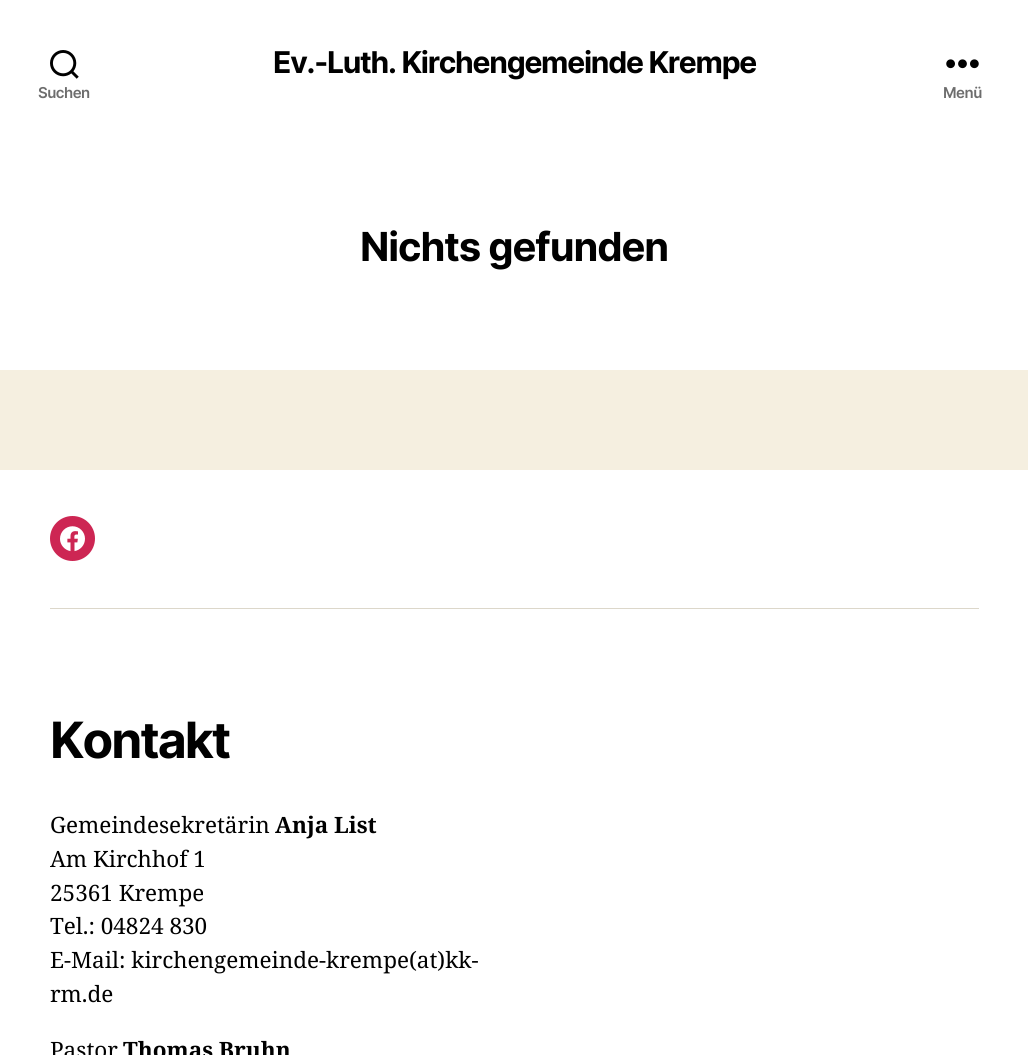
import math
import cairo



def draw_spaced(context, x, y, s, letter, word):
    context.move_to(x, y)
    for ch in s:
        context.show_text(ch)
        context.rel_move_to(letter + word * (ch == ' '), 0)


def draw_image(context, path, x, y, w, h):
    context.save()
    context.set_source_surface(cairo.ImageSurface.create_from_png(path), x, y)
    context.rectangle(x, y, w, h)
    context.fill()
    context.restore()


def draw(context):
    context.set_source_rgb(245 / 255, 239 / 255, 224 / 255)
    context.paint()
    context.set_source_rgb(1, 1, 1)
    context.rectangle(0, 0, 1028, 370)
    context.fill()
    draw_image(context, "images/1.png", 50, 50, 29, 29)
    draw_image(context, "images/2.png", 946, 59, 33, 10)
    context.rectangle(0, 470, 1028, 585)
    context.fill()
    context.set_source_rgb(220 / 255, 215 / 255, 202 / 255)
    context.rectangle(50, 608, 929, 1)
    context.fill()
    context.set_source_rgb(205 / 255, 38 / 255, 83 / 255)
    context.arc(72.5, 538.5, 22.5, 0, 2 * math.pi)
    context.fill()
    draw_image(context, "images/3.png", 60, 526, 25, 26)
    context.select_font_face("Inter", cairo.FontSlant.NORMAL, cairo.FontWeight.BOLD)
    context.set_font_size(30)
    context.set_source_rgb(0, 0, 0)
    draw_spaced(context, 273, 73, "Ev.-Luth. Kirchengemeinde Krempe", -1.25, 0)
    context.select_font_face("Inter SemiBold")
    context.set_font_size(15)
    context.set_source_rgb(109 / 255, 109 / 255, 109 / 255)
    draw_spaced(context, 38, 98, "Suchen", -0.5, 0)
    draw_spaced(context, 943, 98, "Menü", -0.5, 0)
    context.select_font_face("Inter", cairo.FontSlant.NORMAL, cairo.FontWeight.BOLD)
    context.set_font_size(40)
    context.set_source_rgb(0, 0, 0)
    draw_spaced(context, 360, 261, "Nichts gefunden", -1.1, 0)
    context.set_font_size(50)
    draw_spaced(context, 50, 758, "Kontakt", -2, 0)
    context.select_font_face("Noto Serif")
    context.set_font_size(22.5)
    context.move_to(50, 833)
    context.show_text("Gemeindesekretärin")
    context.select_font_face("Noto Serif", cairo.FontSlant.NORMAL, cairo.FontWeight.BOLD)
    context.move_to(275, 833)
    context.show_text("Anja List")
    context.select_font_face("Noto Serif")
    context.move_to(50, 867)
    context.show_text("Am Kirchhof 1")
    context.move_to(50, 901)
    context.show_text("25361 Krempe")
    context.move_to(50, 934)
    context.show_text("Tel.: 04824 830")
    context.move_to(50, 968)
    context.show_text("E-Mail: kirchengemeinde-krempe(at)kk-")
    context.move_to(50, 1002)
    context.show_text("rm.de")
    context.move_to(50, 1058)
    context.show_text("Pastor")
    context.select_font_face("Noto Serif", cairo.FontSlant.NORMAL, cairo.FontWeight.BOLD)
    context.move_to(123, 1058)
    context.show_text("Thomas Bruhn")


surface = cairo.ImageSurface(cairo.Format.RGB24, 1028, 1055)
context = cairo.Context(surface)
options = cairo.FontOptions()
options.set_hint_metrics(cairo.HintMetrics.OFF)
options.set_hint_style(cairo.HintStyle.NONE)
context.set_font_options(options)
context.set_miter_limit(4)
draw(context)
surface.write_to_png("out.png")
